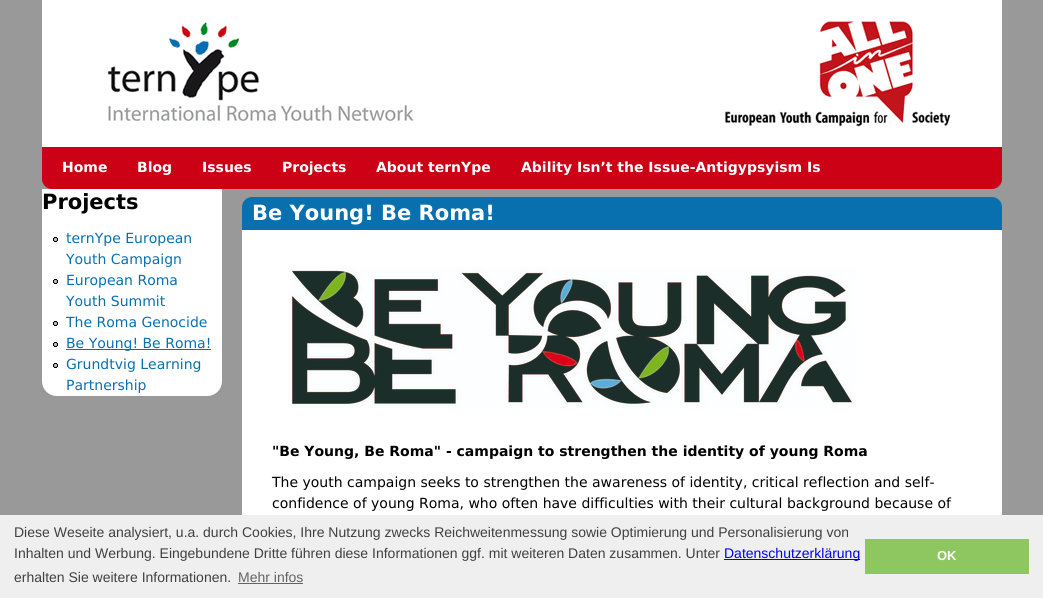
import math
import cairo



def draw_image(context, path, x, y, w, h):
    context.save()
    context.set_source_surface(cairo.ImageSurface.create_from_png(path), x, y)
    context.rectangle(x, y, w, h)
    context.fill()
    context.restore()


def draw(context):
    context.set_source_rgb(153 / 255, 153 / 255, 153 / 255)
    context.paint()
    context.set_source_rgb(1, 1, 1)
    context.rectangle(42, 0, 960, 147)
    context.fill()
    draw_image(context, "images/1.png", 107, 21, 844, 106)
    context.set_source_rgb(204 / 255, 1 / 255, 22 / 255)
    context.new_path()
    context.move_to(42, 147)
    context.line_to(1002, 147)
    context.line_to(1002, 179)
    context.curve_to(1002, 184.5, 997.5, 189, 992, 189)
    context.line_to(52, 189)
    context.curve_to(46.5, 189, 42, 184.5, 42, 179)
    context.close_path()
    context.fill()
    context.set_source_rgb(1, 1, 1)
    context.new_path()
    context.move_to(42, 189)
    context.line_to(222, 189)
    context.line_to(222, 381)
    context.curve_to(222, 389.5, 215.5, 396, 207, 396)
    context.line_to(57, 396)
    context.curve_to(48.5, 396, 42, 389.5, 42, 381)
    context.close_path()
    context.fill()
    draw_image(context, "images/2.png", 53, 237, 5, 5)
    draw_image(context, "images/2.png", 53, 279, 5, 5)
    draw_image(context, "images/2.png", 53, 321, 5, 5)
    draw_image(context, "images/2.png", 53, 342, 5, 5)
    context.set_source_rgb(8 / 255, 112 / 255, 175 / 255)
    context.rectangle(66, 349, 145, 1)
    context.fill()
    draw_image(context, "images/2.png", 53, 363, 5, 5)
    context.new_path()
    context.move_to(252, 197)
    context.line_to(992, 197)
    context.curve_to(997.5, 197, 1002, 201.5, 1002, 207)
    context.line_to(1002, 230)
    context.line_to(242, 230)
    context.line_to(242, 207)
    context.curve_to(242, 201.5, 246.5, 197, 252, 197)
    context.close_path()
    context.fill()
    context.set_source_rgb(1, 1, 1)
    context.rectangle(242, 230, 760, 285)
    context.fill()
    draw_image(context, "images/3.png", 288, 267, 568, 142)
    context.set_source_rgb(239 / 255, 239 / 255, 239 / 255)
    context.rectangle(0, 515, 1043, 83)
    context.fill()
    context.set_source_rgb(0, 0, 238 / 255)
    context.rectangle(724, 559, 136, 1)
    context.fill()
    context.set_source_rgb(99 / 255, 99 / 255, 99 / 255)
    context.rectangle(238, 583, 65, 1)
    context.fill()
    context.set_source_rgb(142 / 255, 199 / 255, 96 / 255)
    context.rectangle(865, 539, 164, 35)
    context.fill()
    context.select_font_face("DejaVu Sans", cairo.FontSlant.NORMAL, cairo.FontWeight.BOLD)
    context.set_font_size(14)
    context.set_source_rgb(1, 1, 1)
    context.move_to(62, 172)
    context.show_text("Home")
    context.move_to(137, 172)
    context.show_text("Blog")
    context.move_to(202, 172)
    context.show_text("Issues")
    context.move_to(282, 172)
    context.show_text("Projects")
    context.move_to(376, 172)
    context.show_text("About ternYpe")
    context.move_to(521, 172)
    context.show_text("Ability Isn’t the Issue-Antigypsyism Is")
    context.set_font_size(21)
    context.set_source_rgb(0, 0, 0)
    context.move_to(42, 209)
    context.show_text("Projects")
    context.select_font_face("DejaVu Sans")
    context.set_font_size(14)
    context.set_source_rgb(8 / 255, 112 / 255, 175 / 255)
    context.move_to(66, 243)
    context.show_text("ternYpe European")
    context.move_to(66, 264)
    context.show_text("Youth Campaign")
    context.move_to(66, 285)
    context.show_text("European Roma")
    context.move_to(66, 306)
    context.show_text("Youth Summit")
    context.move_to(66, 327)
    context.show_text("The Roma Genocide")
    context.move_to(66, 348)
    context.show_text("Be Young! Be Roma!")
    context.move_to(66, 369)
    context.show_text("Grundtvig Learning")
    context.move_to(66, 390)
    context.show_text("Partnership")
    context.select_font_face("DejaVu Sans", cairo.FontSlant.NORMAL, cairo.FontWeight.BOLD)
    context.set_font_size(21)
    context.set_source_rgb(1, 1, 1)
    context.move_to(252, 220)
    context.show_text("Be Young! Be Roma!")
    context.set_font_size(14)
    context.set_source_rgb(0, 0, 0)
    context.move_to(272, 456)
    context.show_text("\"Be Young, Be Roma\" - campaign to strengthen the identity of young Roma")
    context.select_font_face("DejaVu Sans")
    context.move_to(272, 487)
    context.show_text("The youth campaign seeks to strengthen the awareness of identity, critical reflection and self-")
    context.move_to(272, 508)
    context.show_text("confidence of young Roma, who often have difficulties with their cultural background because of")
    context.select_font_face("Liberation Sans")
    context.set_source_rgb(64 / 255, 64 / 255, 64 / 255)
    context.move_to(14, 537)
    context.show_text("Diese Weseite analysiert, u.a. durch Cookies, Ihre Nutzung zwecks Reichweitenmessung sowie Optimierung und Personalisierung von")
    context.move_to(14, 558)
    context.show_text("Inhalten und Werbung. Eingebundene Dritte führen diese Informationen ggf. mit weiteren Daten zusammen. Unter")
    context.set_source_rgb(0, 0, 238 / 255)
    context.move_to(724, 558)
    context.show_text("Datenschutzerklärung")
    context.set_source_rgb(64 / 255, 64 / 255, 64 / 255)
    context.move_to(14, 582)
    context.show_text("erhalten Sie weitere Informationen.")
    context.set_source_rgb(99 / 255, 99 / 255, 99 / 255)
    context.move_to(238, 582)
    context.show_text("Mehr infos")
    context.select_font_face("Liberation Sans", cairo.FontSlant.NORMAL, cairo.FontWeight.BOLD)
    context.set_font_size(13)
    context.set_source_rgb(1, 1, 1)
    context.move_to(937, 560)
    context.show_text("OK")


surface = cairo.ImageSurface(cairo.Format.RGB24, 1043, 598)
context = cairo.Context(surface)
options = cairo.FontOptions()
options.set_hint_metrics(cairo.HintMetrics.OFF)
options.set_hint_style(cairo.HintStyle.NONE)
context.set_font_options(options)
context.set_miter_limit(4)
draw(context)
surface.write_to_png("out.png")
